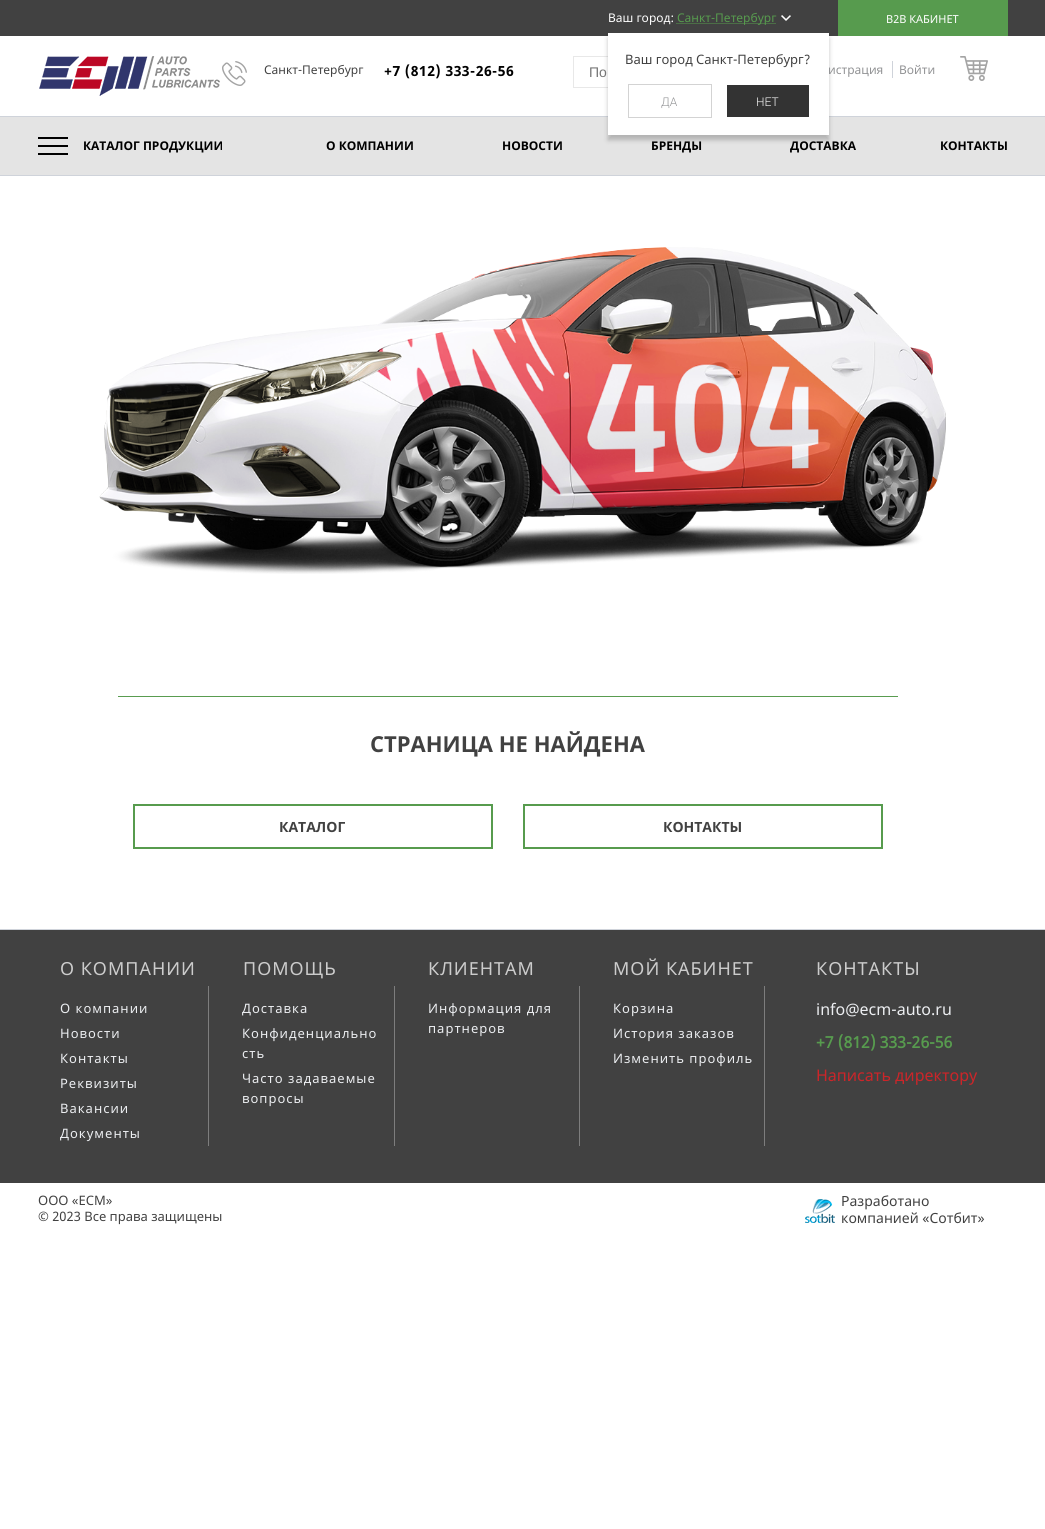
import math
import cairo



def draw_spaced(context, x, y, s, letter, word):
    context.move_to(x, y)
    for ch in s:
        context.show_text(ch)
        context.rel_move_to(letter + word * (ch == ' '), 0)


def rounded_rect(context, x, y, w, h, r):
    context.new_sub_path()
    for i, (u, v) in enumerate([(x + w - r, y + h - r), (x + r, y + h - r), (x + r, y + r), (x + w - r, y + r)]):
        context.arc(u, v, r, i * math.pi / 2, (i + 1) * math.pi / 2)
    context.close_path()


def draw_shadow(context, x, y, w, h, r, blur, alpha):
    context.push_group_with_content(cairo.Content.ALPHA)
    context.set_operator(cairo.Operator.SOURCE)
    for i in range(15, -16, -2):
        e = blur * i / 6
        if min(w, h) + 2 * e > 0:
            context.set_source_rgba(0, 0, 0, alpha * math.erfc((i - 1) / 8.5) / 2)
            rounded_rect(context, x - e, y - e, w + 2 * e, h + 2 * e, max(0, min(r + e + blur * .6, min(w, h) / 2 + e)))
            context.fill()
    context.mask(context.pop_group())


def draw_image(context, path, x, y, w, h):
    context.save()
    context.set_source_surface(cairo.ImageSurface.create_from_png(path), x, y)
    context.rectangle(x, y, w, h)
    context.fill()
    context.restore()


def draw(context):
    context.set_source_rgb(1, 1, 1)
    context.paint()
    context.set_source_rgb(65 / 255, 65 / 255, 65 / 255)
    context.rectangle(0, 0, 1045, 36)
    context.fill()
    context.new_path()
    context.move_to(676.5, 23.5)
    context.line_to(776, 23.5)
    context.set_source_rgb(87 / 255, 155 / 255, 78 / 255)
    context.set_line_width(1)
    context.set_dash([1, 1])
    context.stroke()
    draw_image(context, "images/1.png", 781, 15, 10, 6)
    context.rectangle(573.5, 56.5, 184, 31)
    context.set_source_rgb(232 / 255, 232 / 255, 232 / 255)
    context.set_dash([])
    context.stroke()
    context.set_source_rgb(228 / 255, 228 / 255, 228 / 255)
    context.rectangle(0, 117, 1045, 58)
    context.fill()
    context.set_source_rgb(207 / 255, 211 / 255, 218 / 255)
    context.rectangle(0, 116, 1045, 1)
    context.fill()
    context.set_source_rgb(0, 0, 0)
    draw_shadow(context, 608, 38, 221, 102, 0, 2.5, 0.22)
    context.set_source_rgb(87 / 255, 155 / 255, 78 / 255)
    context.rectangle(838, 0, 170, 36)
    context.fill()
    draw_image(context, "images/2.png", 39, 56, 181, 40)
    draw_image(context, "images/3.png", 222, 61, 25, 25)
    context.set_source_rgb(207 / 255, 211 / 255, 218 / 255)
    context.rectangle(892, 61, 1, 17)
    context.fill()
    draw_image(context, "images/4.png", 960, 56, 28, 25)
    context.rectangle(0, 175, 1045, 1)
    context.fill()
    context.set_source_rgb(0, 0, 0)
    context.rectangle(38, 137, 30, 2)
    context.fill()
    context.rectangle(38, 145, 30, 2)
    context.fill()
    context.rectangle(38, 153, 30, 2)
    context.fill()
    draw_image(context, "images/5.png", 99, 247, 847, 327)
    context.set_source_rgb(89 / 255, 156 / 255, 80 / 255)
    context.rectangle(118, 696, 780, 1)
    context.fill()
    context.rectangle(134, 805, 358, 43)
    context.set_source_rgb(87 / 255, 155 / 255, 78 / 255)
    context.set_line_width(2)
    context.stroke()
    context.rectangle(524, 805, 358, 43)
    context.stroke()
    context.set_source_rgb(65 / 255, 65 / 255, 65 / 255)
    context.rectangle(0, 930, 1045, 253)
    context.fill()
    context.set_source_rgb(207 / 255, 211 / 255, 218 / 255)
    context.rectangle(0, 929, 1045, 1)
    context.fill()
    context.set_source_rgb(125 / 255, 125 / 255, 125 / 255)
    context.rectangle(208, 986, 1, 160)
    context.fill()
    context.rectangle(394, 986, 1, 160)
    context.fill()
    context.rectangle(579, 986, 1, 160)
    context.fill()
    context.rectangle(764, 986, 1, 160)
    context.fill()
    draw_image(context, "images/6.png", 805, 1199, 30, 24)
    context.select_font_face("Noto Sans")
    context.set_font_size(12)
    context.set_source_rgb(1, 1, 1)
    context.move_to(608, 22)
    context.show_text("Ваш город:")
    context.set_source_rgb(87 / 255, 155 / 255, 78 / 255)
    context.move_to(677, 22)
    context.show_text("Санкт-Петербург")
    context.set_font_size(11)
    context.set_source_rgb(1, 1, 1)
    context.move_to(886, 23)
    context.show_text("B2B КАБИНЕТ")
    context.set_font_size(12)
    context.set_source_rgb(65 / 255, 65 / 255, 65 / 255)
    context.move_to(264, 74)
    context.show_text("Санкт-Петербург")
    context.select_font_face("Noto Sans", cairo.FontSlant.NORMAL, cairo.FontWeight.BOLD)
    context.set_font_size(14)
    context.set_source_rgb(0, 0, 0)
    draw_spaced(context, 384, 76, "+7 (812) 333-26-56", 0.5, 0)
    context.select_font_face("Liberation Sans")
    context.set_source_rgb(117 / 255, 117 / 255, 117 / 255)
    context.move_to(589, 77)
    context.show_text("По")
    context.select_font_face("Noto Sans")
    context.set_font_size(12)
    context.set_source_rgb(145 / 255, 146 / 255, 148 / 255)
    context.move_to(828, 74)
    context.show_text("истрация")
    context.set_source_rgb(1, 1, 1)
    context.rectangle(608, 33, 221, 102)
    context.fill()
    context.set_source_rgb(51 / 255, 51 / 255, 51 / 255)
    context.rectangle(727, 85, 82, 32)
    context.fill()
    context.select_font_face("Roboto Light")
    context.set_source_rgb(1, 1, 1)
    context.move_to(756, 106)
    context.show_text("НЕТ")
    context.rectangle(628.5, 84.5, 83, 33)
    context.set_source_rgb(211 / 255, 211 / 255, 211 / 255)
    context.set_line_width(1)
    context.stroke()
    context.set_source_rgb(145 / 255, 146 / 255, 148 / 255)
    context.move_to(661, 106)
    context.show_text("ДА")
    context.select_font_face("Noto Sans")
    context.set_font_size(13)
    context.set_source_rgb(65 / 255, 65 / 255, 65 / 255)
    context.move_to(625, 64)
    context.show_text("Ваш город Санкт-Петербург?")
    context.set_font_size(12)
    context.set_source_rgb(145 / 255, 146 / 255, 148 / 255)
    context.move_to(899, 74)
    context.show_text("Войти")
    context.select_font_face("Noto Sans", cairo.FontSlant.NORMAL, cairo.FontWeight.BOLD)
    context.set_source_rgb(0, 0, 0)
    context.move_to(83, 150)
    context.show_text("КАТАЛОГ ПРОДУКЦИИ")
    context.move_to(326, 150)
    context.show_text("О КОМПАНИИ")
    context.move_to(502, 150)
    context.show_text("НОВОСТИ")
    context.move_to(651, 150)
    context.show_text("БРЕНДЫ")
    context.move_to(790, 150)
    context.show_text("ДОСТАВКА")
    context.move_to(940, 150)
    context.show_text("КОНТАКТЫ")
    context.set_font_size(22)
    context.set_source_rgb(65 / 255, 65 / 255, 65 / 255)
    context.move_to(370, 752)
    context.show_text("СТРАНИЦА НЕ НАЙДЕНА")
    context.set_font_size(14)
    context.move_to(279, 832)
    context.show_text("КАТАЛОГ")
    context.move_to(663, 832)
    context.show_text("КОНТАКТЫ")
    context.select_font_face("Noto Sans")
    context.set_font_size(18)
    context.set_source_rgb(204 / 255, 204 / 255, 204 / 255)
    draw_spaced(context, 60, 975, "О КОМПАНИИ", 1, 0)
    context.set_font_size(13)
    context.set_source_rgb(236 / 255, 238 / 255, 241 / 255)
    draw_spaced(context, 60, 1013, "О компании", 1, 0)
    draw_spaced(context, 60, 1038, "Новости", 1, 0)
    draw_spaced(context, 60, 1063, "Контакты", 1, 0)
    draw_spaced(context, 60, 1088, "Реквизиты", 1, 0)
    draw_spaced(context, 60, 1113, "Вакансии", 1, 0)
    draw_spaced(context, 60, 1138, "Документы", 1, 0)
    context.set_font_size(18)
    context.set_source_rgb(204 / 255, 204 / 255, 204 / 255)
    draw_spaced(context, 243, 975, "ПОМОЩЬ", 1, 0)
    context.set_font_size(13)
    context.set_source_rgb(236 / 255, 238 / 255, 241 / 255)
    draw_spaced(context, 242, 1013, "Доставка", 1, 0)
    draw_spaced(context, 242, 1038, "Конфиденциально", 1, 0)
    draw_spaced(context, 242, 1058, "сть", 1, 0)
    draw_spaced(context, 242, 1083, "Часто задаваемые", 1, 0)
    draw_spaced(context, 242, 1103, "вопросы", 1, 0)
    context.set_font_size(18)
    context.set_source_rgb(204 / 255, 204 / 255, 204 / 255)
    draw_spaced(context, 428, 975, "КЛИЕНТАМ", 1, 0)
    context.set_font_size(13)
    context.set_source_rgb(236 / 255, 238 / 255, 241 / 255)
    draw_spaced(context, 428, 1013, "Информация для", 1, 0)
    draw_spaced(context, 428, 1033, "партнеров", 1, 0)
    context.set_font_size(18)
    context.set_source_rgb(204 / 255, 204 / 255, 204 / 255)
    draw_spaced(context, 613, 975, "МОЙ КАБИНЕТ", 1, 0)
    context.set_font_size(13)
    context.set_source_rgb(236 / 255, 238 / 255, 241 / 255)
    draw_spaced(context, 613, 1013, "Корзина", 1, 0)
    draw_spaced(context, 613, 1038, "История заказов", 1, 0)
    draw_spaced(context, 613, 1063, "Изменить профиль", 1, 0)
    context.set_font_size(18)
    context.set_source_rgb(204 / 255, 204 / 255, 204 / 255)
    draw_spaced(context, 816, 975, "КОНТАКТЫ", 1, 0)
    context.set_font_size(16)
    context.set_source_rgb(236 / 255, 238 / 255, 241 / 255)
    context.move_to(816, 1015)
    context.show_text("info@ecm-auto.ru")
    context.select_font_face("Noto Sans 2", cairo.FontSlant.NORMAL, cairo.FontWeight.BOLD)
    context.set_source_rgb(87 / 255, 155 / 255, 78 / 255)
    context.move_to(816, 1048)
    context.show_text("+7 (812) 333-26-56")
    context.select_font_face("Noto Sans")
    context.set_source_rgb(204 / 255, 37 / 255, 41 / 255)
    context.move_to(816, 1081)
    context.show_text("Написать директору")
    context.set_font_size(13)
    context.set_source_rgb(65 / 255, 65 / 255, 65 / 255)
    context.move_to(38, 1205)
    context.show_text("ООО «ЕСМ»")
    context.move_to(38, 1221)
    context.show_text("© 2023 Все права защищены")
    context.set_font_size(14)
    context.move_to(841, 1206)
    context.show_text("Разработано")
    context.move_to(841, 1223)
    context.show_text("компанией «Сотбит»")


surface = cairo.ImageSurface(cairo.Format.RGB24, 1045, 1529)
context = cairo.Context(surface)
options = cairo.FontOptions()
options.set_hint_metrics(cairo.HintMetrics.OFF)
options.set_hint_style(cairo.HintStyle.NONE)
context.set_font_options(options)
context.set_miter_limit(4)
draw(context)
surface.write_to_png("out.png")
